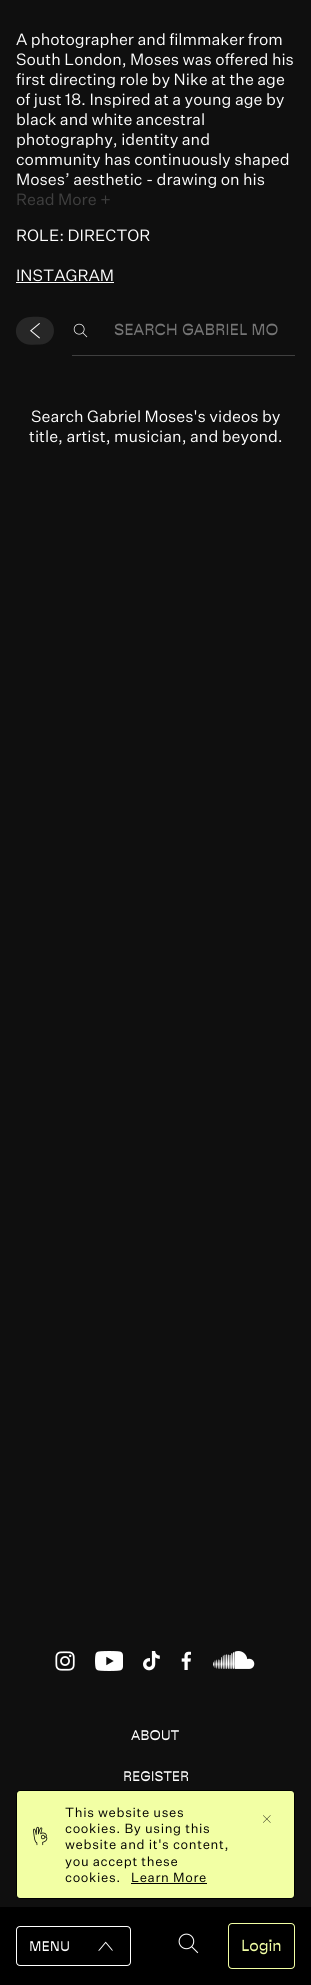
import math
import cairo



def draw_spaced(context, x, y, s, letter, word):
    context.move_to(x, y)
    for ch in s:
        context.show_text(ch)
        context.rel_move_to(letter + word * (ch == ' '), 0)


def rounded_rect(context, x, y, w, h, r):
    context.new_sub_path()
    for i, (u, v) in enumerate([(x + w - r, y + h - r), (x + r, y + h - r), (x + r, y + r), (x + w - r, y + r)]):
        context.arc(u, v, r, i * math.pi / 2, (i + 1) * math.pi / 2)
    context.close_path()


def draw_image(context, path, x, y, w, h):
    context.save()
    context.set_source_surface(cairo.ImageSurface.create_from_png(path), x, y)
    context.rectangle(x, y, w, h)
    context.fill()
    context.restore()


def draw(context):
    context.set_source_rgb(15 / 255, 15 / 255, 15 / 255)
    context.paint()
    context.set_source_rgb(0, 0, 0)
    context.rectangle(0, 1907, 311, 78)
    context.fill()
    context.set_source_rgb(1, 1, 1)
    context.rectangle(16, 282, 98, 1)
    context.fill()
    context.set_source_rgb(39 / 255, 39 / 255, 39 / 255)
    context.new_path()
    context.move_to(40, 344.5)
    context.curve_to(35, 344.5, 29, 345.5, 24.5, 343.5)
    context.curve_to(10.5, 337.5, 14.5, 318, 30, 317)
    context.curve_to(34, 316.5, 42, 316.5, 45.5, 318)
    context.curve_to(59.5, 324, 55, 344.5, 40, 344.5)
    context.close_path()
    context.fill()
    draw_image(context, "images/1.png", 30, 323, 10, 16)
    context.set_source_rgb(63 / 255, 63 / 255, 63 / 255)
    context.rectangle(72, 355, 223, 1)
    context.fill()
    draw_image(context, "images/2.png", 73, 323, 15, 15)
    draw_image(context, "images/3.png", 55, 1651, 20, 20)
    draw_image(context, "images/4.png", 95, 1651, 28, 20)
    draw_image(context, "images/5.png", 143, 1651, 17, 20)
    draw_image(context, "images/6.png", 181, 1651, 10, 19)
    draw_image(context, "images/7.png", 213, 1651, 42, 18)
    context.set_source_rgb(242 / 255, 1, 164 / 255)
    rounded_rect(context, 16.5, 1790.5, 278, 108, 3.5)
    context.fill_preserve()
    context.set_source_rgb(0, 0, 0)
    context.set_line_width(1)
    context.stroke()
    context.rectangle(131, 1883, 76, 1)
    context.fill()
    draw_image(context, "images/8.png", 263, 1815, 8, 8)
    draw_image(context, "images/9.png", 33, 1826, 15, 20)
    rounded_rect(context, 16.5, 1926.5, 114, 39, 3.5)
    context.set_source_rgb(1, 1, 1)
    context.stroke()
    draw_image(context, "images/10.png", 98, 1941, 15, 10)
    draw_image(context, "images/11.png", 178, 1933, 21, 21)
    rounded_rect(context, 228.5, 1923.5, 66, 45, 3.5)
    context.set_source_rgb(242 / 255, 1, 164 / 255)
    context.stroke()
    context.select_font_face("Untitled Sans")
    context.set_font_size(16)
    context.set_source_rgb(1, 1, 1)
    context.move_to(16, 45)
    context.show_text("A photographer and filmmaker from")
    context.move_to(16, 65)
    context.show_text("South London, Moses was offered his")
    context.move_to(16, 85)
    context.show_text("first directing role by Nike at the age")
    context.move_to(16, 105)
    context.show_text("of just 18. Inspired at a young age by")
    context.move_to(16, 125)
    context.show_text("black and white ancestral")
    context.move_to(16, 145)
    context.show_text("photography, identity and")
    context.move_to(16, 165)
    context.show_text("community has continuously shaped")
    context.move_to(16, 185)
    context.show_text("Moses’ aesthetic - drawing on his")
    context.set_source_rgb(63 / 255, 63 / 255, 63 / 255)
    context.move_to(16, 205)
    context.show_text("Read More +")
    context.set_source_rgb(1, 1, 1)
    context.move_to(16, 241)
    context.show_text("ROLE: DIRECTOR")
    context.move_to(16, 281)
    context.show_text("INSTAGRAM")
    context.select_font_face("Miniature")
    context.set_source_rgb(117 / 255, 117 / 255, 117 / 255)
    context.move_to(114, 335)
    context.show_text("SEARCH GABRIEL MO")
    context.select_font_face("Untitled Sans")
    context.set_source_rgb(1, 1, 1)
    context.move_to(31, 422)
    context.show_text("Search Gabriel Moses's videos by")
    context.move_to(29, 442)
    context.show_text("title, artist, musician, and beyond.")
    context.select_font_face("Miniature")
    context.set_font_size(14)
    context.move_to(131, 1740)
    context.show_text("ABOUT")
    context.move_to(123, 1781)
    context.show_text("REGISTER")
    context.select_font_face("Untitled Sans")
    context.set_font_size(13)
    context.set_source_rgb(0, 0, 0)
    draw_spaced(context, 65, 1817, "This website uses", 0.65, 0)
    draw_spaced(context, 65, 1833, "cookies. By using this", 0.65, 0)
    draw_spaced(context, 65, 1849, "website and it's content,", 0.65, 0)
    draw_spaced(context, 65, 1866, "you accept these", 0.65, 0)
    draw_spaced(context, 65, 1882, "cookies.", 0.65, 0)
    draw_spaced(context, 131, 1882, "Learn More", 0.65, 0)
    context.select_font_face("Miniature")
    context.set_font_size(14)
    context.set_source_rgb(1, 1, 1)
    context.move_to(29, 1951)
    context.show_text("MENU")
    context.set_font_size(16)
    context.set_source_rgb(242 / 255, 1, 164 / 255)
    context.move_to(241, 1951)
    context.show_text("Login")


surface = cairo.ImageSurface(cairo.Format.RGB24, 311, 1985)
context = cairo.Context(surface)
options = cairo.FontOptions()
options.set_hint_metrics(cairo.HintMetrics.OFF)
options.set_hint_style(cairo.HintStyle.NONE)
context.set_font_options(options)
context.set_miter_limit(4)
draw(context)
surface.write_to_png("out.png")
